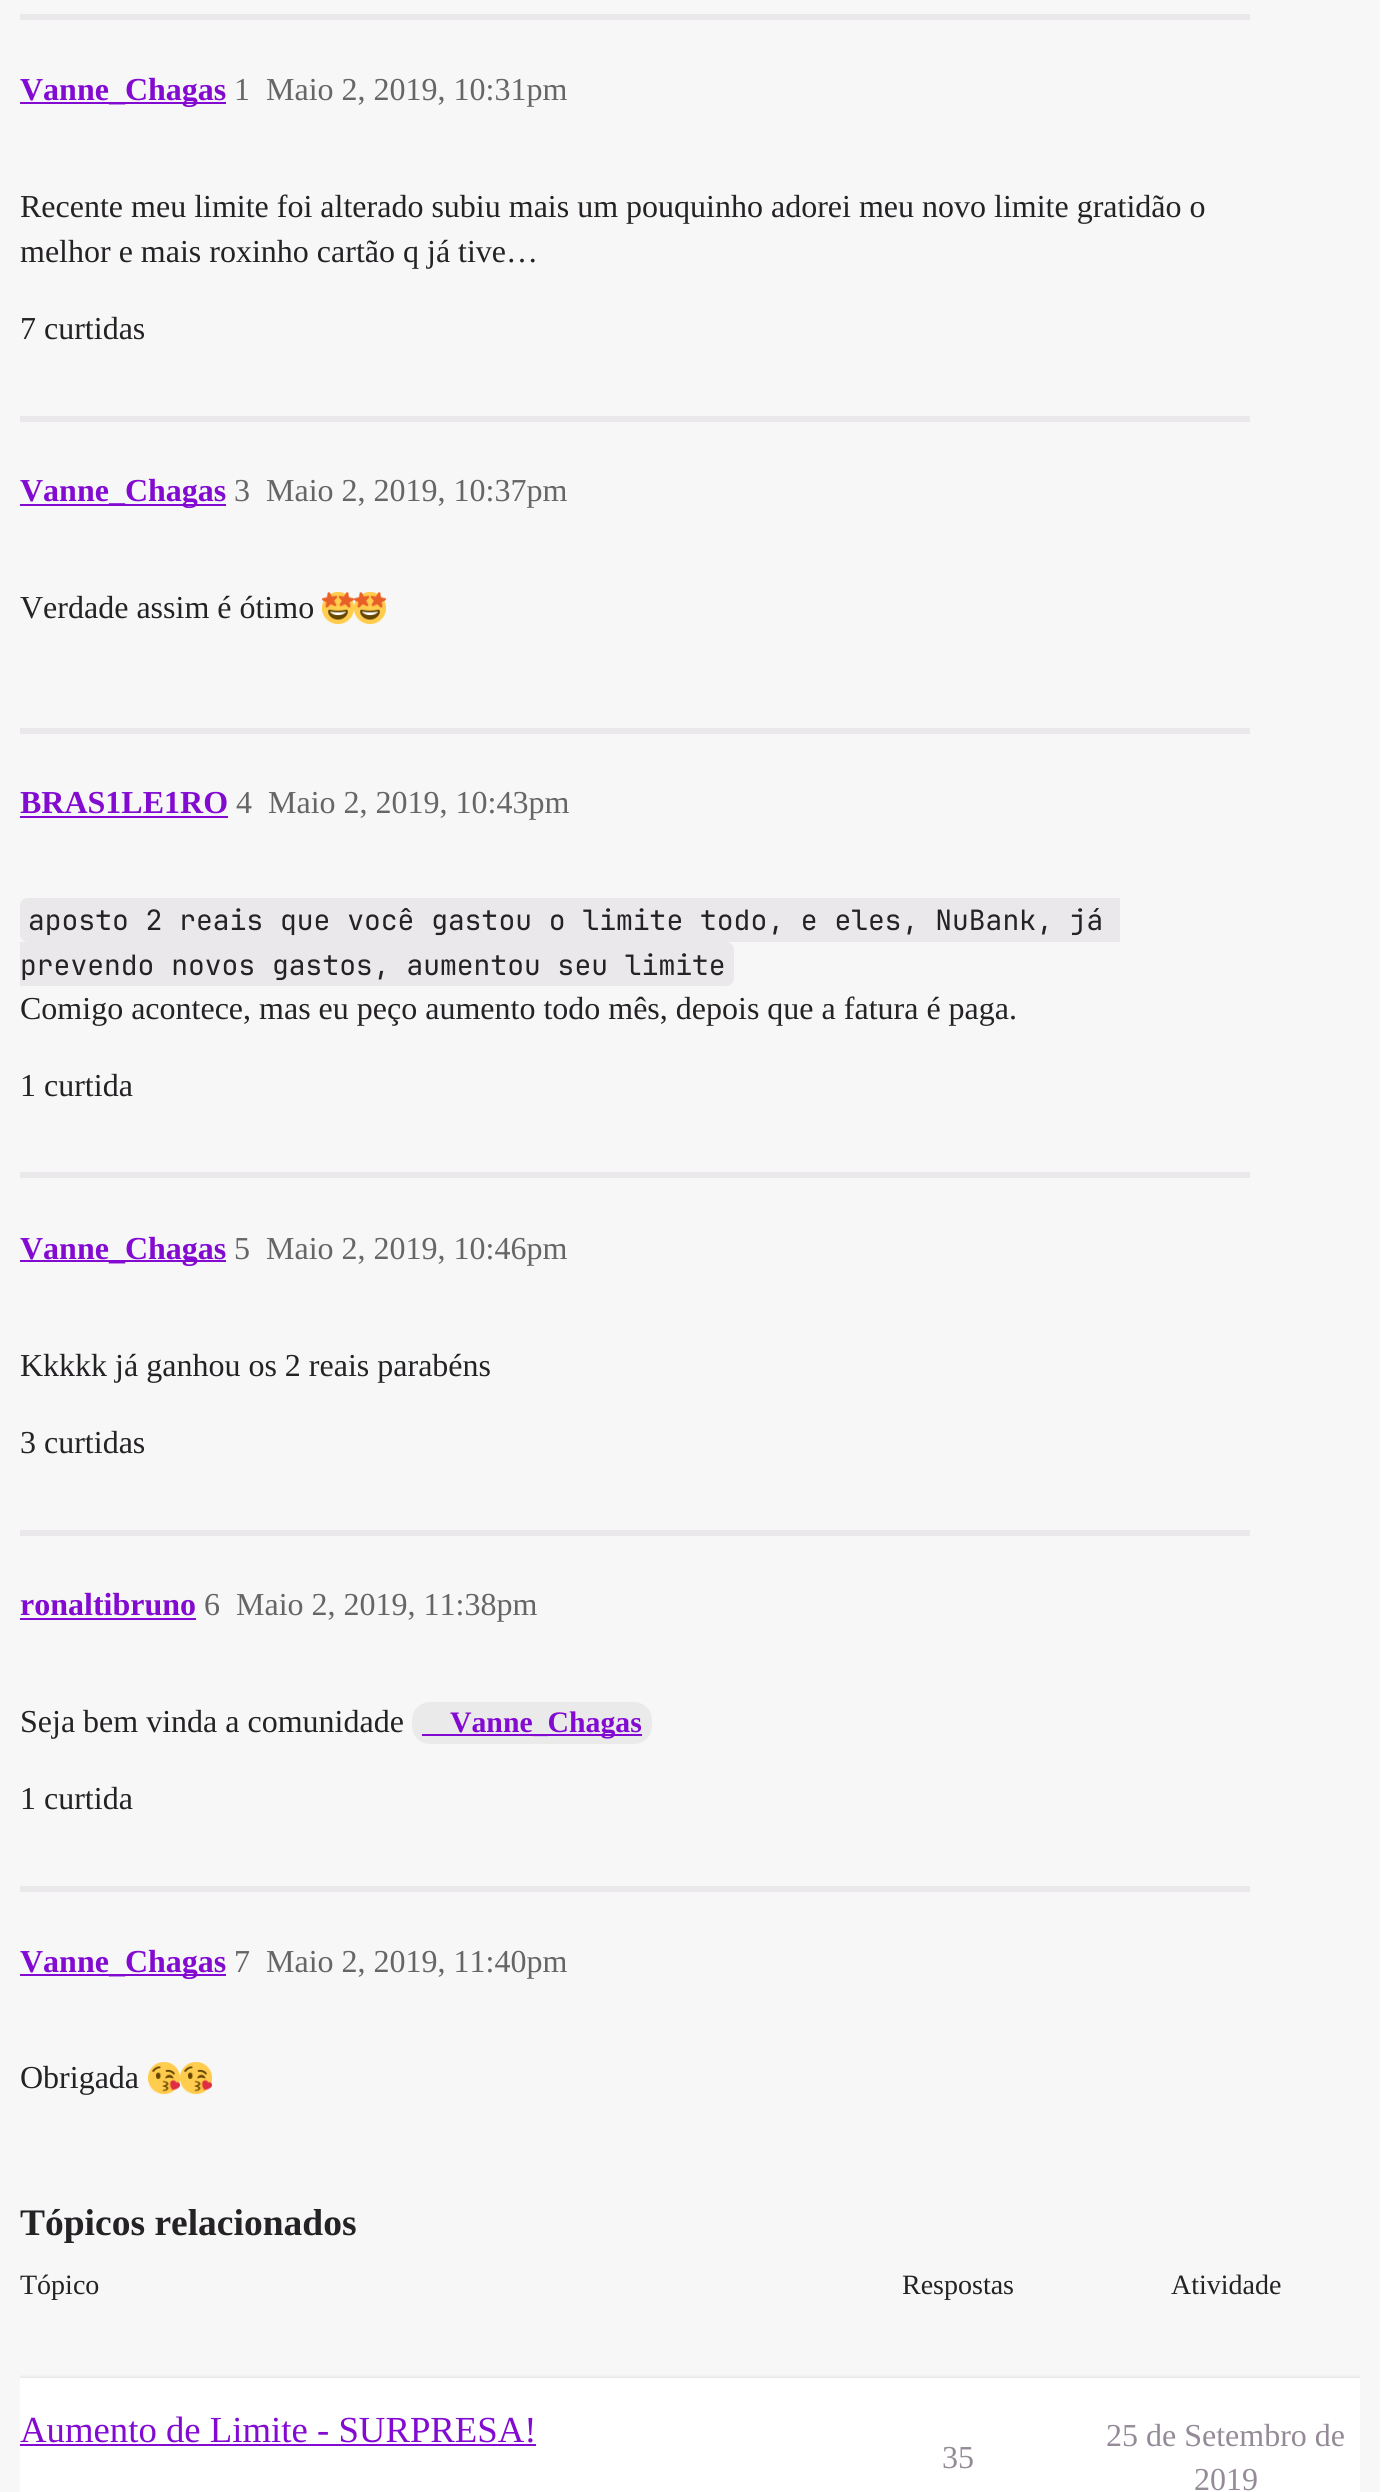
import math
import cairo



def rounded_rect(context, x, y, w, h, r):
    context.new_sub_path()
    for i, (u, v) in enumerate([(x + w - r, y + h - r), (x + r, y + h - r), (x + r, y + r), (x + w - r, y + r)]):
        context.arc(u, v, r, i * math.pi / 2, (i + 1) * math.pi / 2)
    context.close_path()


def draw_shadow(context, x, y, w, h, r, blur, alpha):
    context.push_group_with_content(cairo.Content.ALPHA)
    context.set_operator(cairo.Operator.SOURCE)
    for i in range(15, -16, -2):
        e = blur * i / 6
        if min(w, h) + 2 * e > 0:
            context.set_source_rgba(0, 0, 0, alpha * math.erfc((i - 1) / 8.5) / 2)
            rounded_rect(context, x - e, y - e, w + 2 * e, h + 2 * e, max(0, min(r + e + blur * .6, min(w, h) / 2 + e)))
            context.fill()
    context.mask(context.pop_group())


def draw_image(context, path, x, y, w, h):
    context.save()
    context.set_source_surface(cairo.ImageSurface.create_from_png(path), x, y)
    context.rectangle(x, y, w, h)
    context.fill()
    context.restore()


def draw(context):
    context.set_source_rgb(247 / 255, 247 / 255, 247 / 255)
    context.paint()
    context.set_source_rgb(234 / 255, 232 / 255, 234 / 255)
    context.rectangle(20, 14, 1230, 6)
    context.fill()
    context.set_source_rgb(130 / 255, 10 / 255, 209 / 255)
    context.rectangle(20, 102, 206, 2)
    context.fill()
    context.set_source_rgb(234 / 255, 232 / 255, 234 / 255)
    context.rectangle(20, 416, 1230, 6)
    context.fill()
    context.set_source_rgb(130 / 255, 10 / 255, 209 / 255)
    context.rectangle(20, 504, 206, 2)
    context.fill()
    draw_image(context, "images/1.png", 322, 592, 32, 32)
    draw_image(context, "images/1.png", 354, 592, 32, 32)
    context.set_source_rgb(234 / 255, 232 / 255, 234 / 255)
    context.rectangle(20, 728, 1230, 6)
    context.fill()
    context.set_source_rgb(130 / 255, 10 / 255, 209 / 255)
    context.rectangle(20, 816, 208, 2)
    context.fill()
    context.set_source_rgb(234 / 255, 232 / 255, 234 / 255)
    context.new_path()
    context.move_to(28, 898)
    context.line_to(1104, 898)
    context.line_to(1104, 942)
    context.line_to(28, 942)
    context.curve_to(23.5, 942, 20, 938.5, 20, 934)
    context.line_to(20, 906)
    context.curve_to(20, 901.5, 23.5, 898, 28, 898)
    context.close_path()
    context.fill()
    context.rectangle(1104, 898, 16, 44)
    context.fill()
    context.new_path()
    context.move_to(20, 942)
    context.line_to(726, 942)
    context.curve_to(730.5, 942, 734, 945.5, 734, 950)
    context.line_to(734, 978)
    context.curve_to(734, 982.5, 730.5, 986, 726, 986)
    context.line_to(20, 986)
    context.close_path()
    context.fill()
    context.rectangle(20, 1172, 1230, 6)
    context.fill()
    context.set_source_rgb(130 / 255, 10 / 255, 209 / 255)
    context.rectangle(20, 1260, 206, 2)
    context.fill()
    context.set_source_rgb(234 / 255, 232 / 255, 234 / 255)
    context.rectangle(20, 1530, 1230, 6)
    context.fill()
    context.set_source_rgb(130 / 255, 10 / 255, 209 / 255)
    context.rectangle(20, 1618, 176, 2)
    context.fill()
    context.set_source_rgb(234 / 255, 234 / 255, 234 / 255)
    rounded_rect(context, 412, 1702, 240, 42, 18)
    context.fill()
    context.set_source_rgb(130 / 255, 10 / 255, 209 / 255)
    context.rectangle(422, 1734, 220, 2)
    context.fill()
    context.set_source_rgb(234 / 255, 232 / 255, 234 / 255)
    context.rectangle(20, 1886, 1230, 6)
    context.fill()
    context.set_source_rgb(130 / 255, 10 / 255, 209 / 255)
    context.rectangle(20, 1974, 206, 2)
    context.fill()
    draw_image(context, "images/2.png", 148, 2062, 32, 32)
    draw_image(context, "images/2.png", 180, 2062, 32, 32)
    context.save()
    context.rectangle(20, 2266, 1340, 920)
    context.clip()
    context.set_source_rgb(0, 0, 0)
    draw_shadow(context, 20, 2378, 1340, 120, 0, 2, 0.14)
    context.restore()
    context.set_source_rgb(1, 1, 1)
    context.rectangle(20, 2378, 1340, 114)
    context.fill()
    context.set_source_rgb(130 / 255, 10 / 255, 209 / 255)
    context.rectangle(20, 2444, 516, 2)
    context.fill()
    context.select_font_face("Liberation Serif", cairo.FontSlant.NORMAL, cairo.FontWeight.BOLD)
    context.set_font_size(32)
    context.move_to(20, 100)
    context.show_text("Vanne_Chagas")
    context.select_font_face("Liberation Serif")
    context.set_source_rgb(102 / 255, 102 / 255, 102 / 255)
    context.move_to(234, 100)
    context.show_text("1")
    context.move_to(266, 100)
    context.show_text("Maio 2, 2019, 10:31pm")
    context.set_source_rgb(37 / 255, 34 / 255, 38 / 255)
    context.move_to(20, 217)
    context.show_text("Recente meu limite foi alterado subiu mais um pouquinho adorei meu novo limite gratidão o")
    context.move_to(20, 262)
    context.show_text("melhor e mais roxinho cartão q já tive…")
    context.move_to(20, 339)
    context.show_text("7 curtidas")
    context.select_font_face("Liberation Serif", cairo.FontSlant.NORMAL, cairo.FontWeight.BOLD)
    context.set_source_rgb(130 / 255, 10 / 255, 209 / 255)
    context.move_to(20, 501)
    context.show_text("Vanne_Chagas")
    context.select_font_face("Liberation Serif")
    context.set_source_rgb(102 / 255, 102 / 255, 102 / 255)
    context.move_to(234, 501)
    context.show_text("3")
    context.move_to(266, 501)
    context.show_text("Maio 2, 2019, 10:37pm")
    context.set_source_rgb(37 / 255, 34 / 255, 38 / 255)
    context.move_to(20, 618)
    context.show_text("Verdade assim é ótimo")
    context.select_font_face("Liberation Serif", cairo.FontSlant.NORMAL, cairo.FontWeight.BOLD)
    context.set_source_rgb(130 / 255, 10 / 255, 209 / 255)
    context.move_to(20, 813)
    context.show_text("BRAS1LE1RO")
    context.select_font_face("Liberation Serif")
    context.set_source_rgb(102 / 255, 102 / 255, 102 / 255)
    context.move_to(236, 813)
    context.show_text("4")
    context.move_to(268, 813)
    context.show_text("Maio 2, 2019, 10:43pm")
    context.select_font_face("JetBrains Mono")
    context.set_font_size(28)
    context.set_source_rgb(37 / 255, 34 / 255, 38 / 255)
    context.move_to(28, 930)
    context.show_text("aposto 2 reais que você gastou o limite todo, e eles, NuBank, já")
    context.move_to(20, 975)
    context.show_text("prevendo novos gastos, aumentou seu limite")
    context.select_font_face("Liberation Serif")
    context.set_font_size(32)
    context.move_to(20, 1019)
    context.show_text("Comigo acontece, mas eu peço aumento todo mês, depois que a fatura é paga.")
    context.move_to(20, 1096)
    context.show_text("1 curtida")
    context.select_font_face("Liberation Serif", cairo.FontSlant.NORMAL, cairo.FontWeight.BOLD)
    context.set_source_rgb(130 / 255, 10 / 255, 209 / 255)
    context.move_to(20, 1259)
    context.show_text("Vanne_Chagas")
    context.select_font_face("Liberation Serif")
    context.set_source_rgb(102 / 255, 102 / 255, 102 / 255)
    context.move_to(234, 1259)
    context.show_text("5")
    context.move_to(266, 1259)
    context.show_text("Maio 2, 2019, 10:46pm")
    context.set_source_rgb(37 / 255, 34 / 255, 38 / 255)
    context.move_to(20, 1376)
    context.show_text("Kkkkk já ganhou os 2 reais parabéns")
    context.move_to(20, 1453)
    context.show_text("3 curtidas")
    context.select_font_face("Liberation Serif", cairo.FontSlant.NORMAL, cairo.FontWeight.BOLD)
    context.set_source_rgb(130 / 255, 10 / 255, 209 / 255)
    context.move_to(20, 1615)
    context.show_text("ronaltibruno")
    context.select_font_face("Liberation Serif")
    context.set_source_rgb(102 / 255, 102 / 255, 102 / 255)
    context.move_to(204, 1615)
    context.show_text("6")
    context.move_to(236, 1615)
    context.show_text("Maio 2, 2019, 11:38pm")
    context.set_source_rgb(37 / 255, 34 / 255, 38 / 255)
    context.move_to(20, 1732)
    context.show_text("Seja bem vinda a comunidade")
    context.select_font_face("Liberation Serif", cairo.FontSlant.NORMAL, cairo.FontWeight.BOLD)
    context.set_font_size(29.75)
    context.set_source_rgb(130 / 255, 10 / 255, 209 / 255)
    context.move_to(450, 1732)
    context.show_text("Vanne_Chagas")
    context.select_font_face("Liberation Serif")
    context.set_font_size(32)
    context.set_source_rgb(37 / 255, 34 / 255, 38 / 255)
    context.move_to(20, 1809)
    context.show_text("1 curtida")
    context.select_font_face("Liberation Serif", cairo.FontSlant.NORMAL, cairo.FontWeight.BOLD)
    context.set_source_rgb(130 / 255, 10 / 255, 209 / 255)
    context.move_to(20, 1972)
    context.show_text("Vanne_Chagas")
    context.select_font_face("Liberation Serif")
    context.set_source_rgb(102 / 255, 102 / 255, 102 / 255)
    context.move_to(234, 1972)
    context.show_text("7")
    context.move_to(266, 1972)
    context.show_text("Maio 2, 2019, 11:40pm")
    context.set_source_rgb(37 / 255, 34 / 255, 38 / 255)
    context.move_to(20, 2088)
    context.show_text("Obrigada")
    context.select_font_face("Liberation Serif", cairo.FontSlant.NORMAL, cairo.FontWeight.BOLD)
    context.set_font_size(37.5)
    context.move_to(20, 2235)
    context.show_text("Tópicos relacionados")
    context.select_font_face("Liberation Serif")
    context.set_font_size(28)
    context.move_to(20, 2294)
    context.show_text("Tópico")
    context.move_to(902, 2294)
    context.show_text("Respostas")
    context.move_to(1171, 2294)
    context.show_text("Atividade")
    context.set_font_size(36.75)
    context.set_source_rgb(130 / 255, 10 / 255, 209 / 255)
    context.move_to(20, 2442)
    context.show_text("Aumento de Limite - SURPRESA!")
    context.set_font_size(32)
    context.set_source_rgb(149 / 255, 139 / 255, 152 / 255)
    context.move_to(942, 2468)
    context.show_text("35")
    context.move_to(1106, 2446)
    context.show_text("25 de Setembro de")
    context.move_to(1194, 2490)
    context.show_text("2019")


surface = cairo.ImageSurface(cairo.Format.RGB24, 1380, 2492)
context = cairo.Context(surface)
options = cairo.FontOptions()
options.set_hint_metrics(cairo.HintMetrics.OFF)
options.set_hint_style(cairo.HintStyle.NONE)
context.set_font_options(options)
context.set_miter_limit(4)
draw(context)
surface.write_to_png("out.png")
